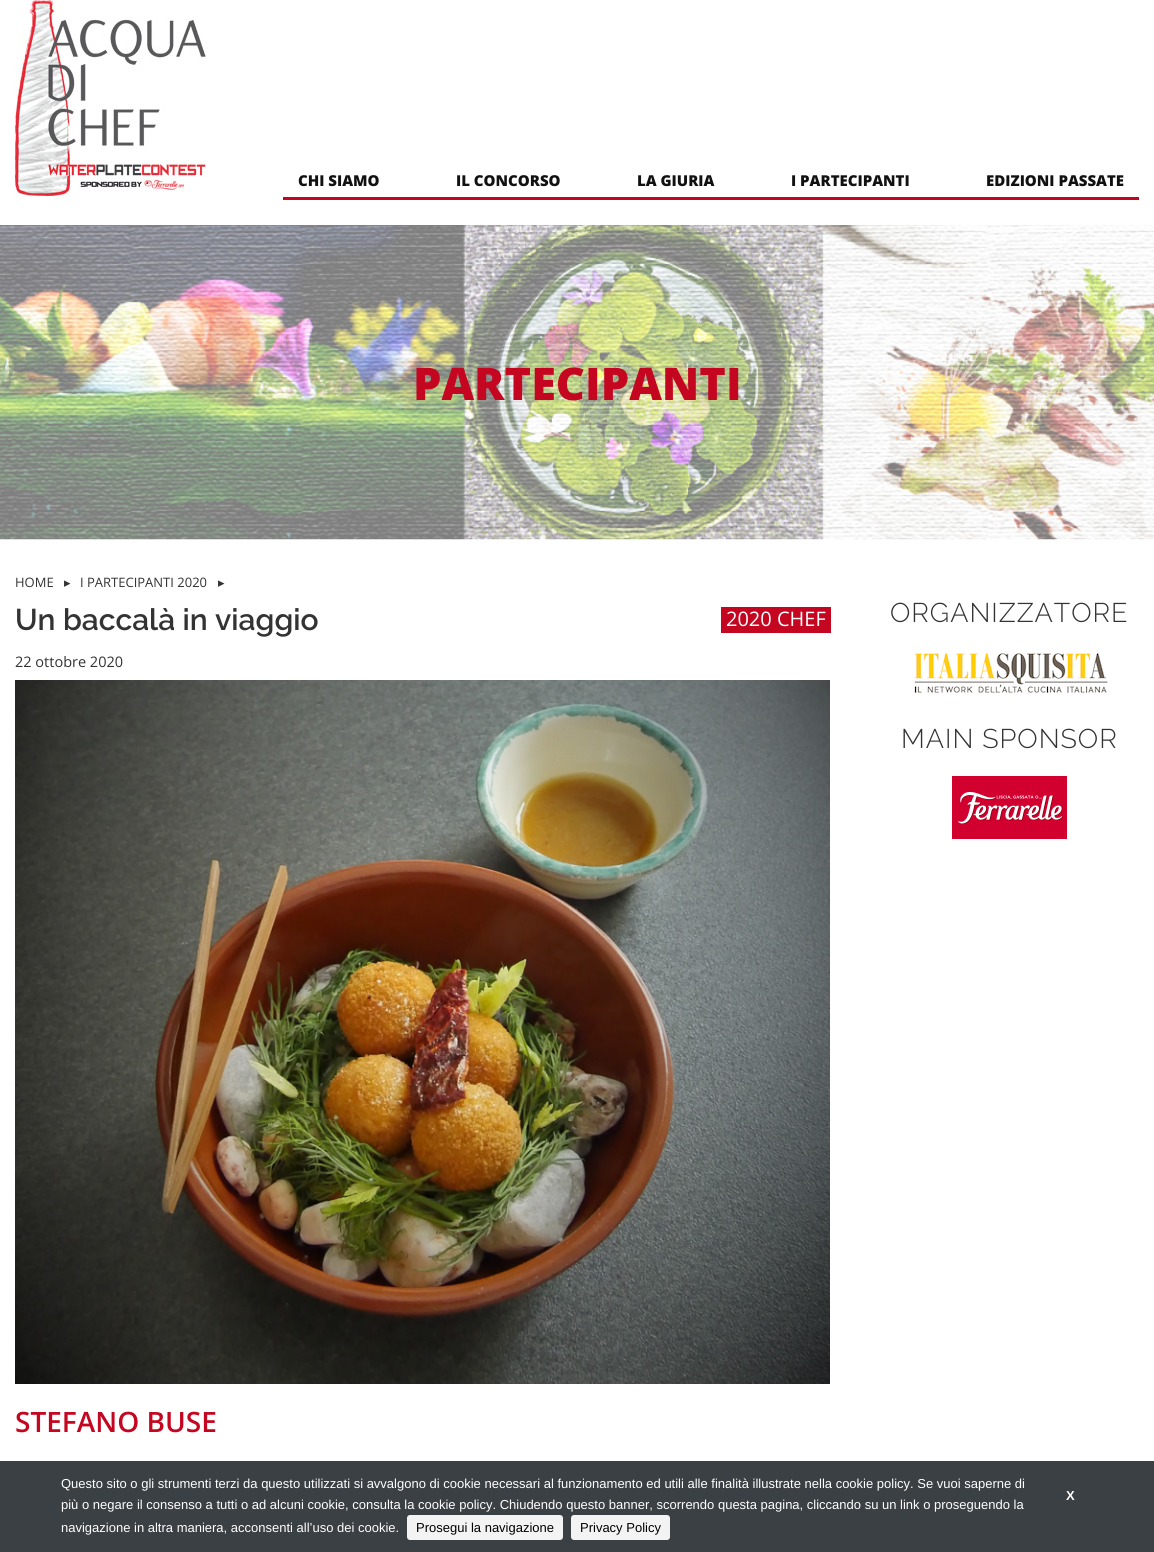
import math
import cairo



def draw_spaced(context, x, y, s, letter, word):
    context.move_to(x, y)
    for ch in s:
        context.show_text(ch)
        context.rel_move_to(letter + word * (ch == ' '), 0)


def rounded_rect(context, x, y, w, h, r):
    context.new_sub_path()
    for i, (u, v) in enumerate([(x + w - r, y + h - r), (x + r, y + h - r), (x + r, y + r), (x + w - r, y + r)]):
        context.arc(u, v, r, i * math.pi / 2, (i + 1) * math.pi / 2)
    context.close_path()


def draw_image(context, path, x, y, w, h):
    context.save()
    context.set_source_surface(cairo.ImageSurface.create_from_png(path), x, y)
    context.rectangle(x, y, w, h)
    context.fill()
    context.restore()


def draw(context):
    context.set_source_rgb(1, 1, 1)
    context.paint()
    draw_image(context, "images/1.png", 15, 0, 191, 197)
    context.set_source_rgb(197 / 255, 6 / 255, 33 / 255)
    context.rectangle(283, 197, 856, 3)
    context.fill()
    draw_image(context, "images/2.png", 0, 225, 1154, 315)
    context.rectangle(721, 607, 110, 26)
    context.fill()
    draw_image(context, "images/3.png", 15, 680, 815, 704)
    draw_image(context, "images/4.png", 914, 653, 194, 40)
    draw_image(context, "images/5.png", 952, 776, 115, 63)
    context.set_source_rgb(59 / 255, 64 / 255, 69 / 255)
    context.rectangle(0, 1461, 1154, 91)
    context.fill()
    context.set_source_rgb(243 / 255, 243 / 255, 243 / 255)
    rounded_rect(context, 407, 1515, 156, 25, 3)
    context.fill()
    rounded_rect(context, 571, 1515, 99, 25, 3)
    context.fill()
    context.select_font_face("Open Sans ExtraBold")
    context.set_font_size(15)
    context.set_source_rgb(17 / 255, 17 / 255, 17 / 255)
    context.move_to(298, 186)
    context.show_text("CHI SIAMO")
    context.move_to(456, 186)
    context.show_text("IL CONCORSO")
    context.move_to(637, 186)
    context.show_text("LA GIURIA")
    context.move_to(791, 186)
    context.show_text("I PARTECIPANTI")
    context.move_to(986, 186)
    context.show_text("EDIZIONI PASSATE")
    context.set_font_size(45)
    context.set_source_rgb(197 / 255, 6 / 255, 33 / 255)
    context.move_to(413, 400)
    context.show_text("PARTECIPANTI")
    context.select_font_face("Open Sans")
    context.set_font_size(13)
    context.set_source_rgb(51 / 255, 51 / 255, 51 / 255)
    context.move_to(15, 587)
    context.show_text("HOME")
    context.select_font_face("DejaVu Sans")
    context.move_to(64, 587)
    context.show_text("▸")
    context.select_font_face("Open Sans")
    context.move_to(80, 587)
    context.show_text("I PARTECIPANTI 2020")
    context.select_font_face("DejaVu Sans")
    context.move_to(218, 587)
    context.show_text("▸")
    context.select_font_face("Raleway SemiBold")
    context.set_font_size(30)
    context.move_to(15, 630)
    context.show_text("Un baccalà in viaggio")
    context.select_font_face("Open Sans")
    context.set_font_size(20)
    context.set_source_rgb(1, 1, 1)
    context.move_to(726, 626)
    context.show_text("2020 CHEF")
    context.set_font_size(14.5)
    context.set_source_rgb(51 / 255, 51 / 255, 51 / 255)
    context.move_to(15, 667)
    context.show_text("22 ottobre 2020")
    context.select_font_face("Open Sans SemiBold")
    context.set_font_size(28)
    context.set_source_rgb(197 / 255, 6 / 255, 33 / 255)
    context.move_to(15, 1432)
    context.show_text("STEFANO BUSE")
    context.select_font_face("Raleway Light")
    context.set_font_size(27)
    context.set_source_rgb(51 / 255, 51 / 255, 51 / 255)
    draw_spaced(context, 890, 622, "ORGANIZZATORE", 1, 0)
    draw_spaced(context, 901, 748, "MAIN SPONSOR", 1, 0)
    context.select_font_face("Liberation Sans")
    context.set_font_size(13)
    context.set_source_rgb(1, 1, 1)
    context.move_to(61, 1488)
    context.show_text("Questo sito o gli strumenti terzi da questo utilizzati si avvalgono di cookie necessari al funzionamento ed utili alle finalità illustrate nella cookie policy. Se vuoi saperne di")
    context.select_font_face("Liberation Sans", cairo.FontSlant.NORMAL, cairo.FontWeight.BOLD)
    context.move_to(1066, 1500)
    context.show_text("X")
    context.select_font_face("Liberation Sans")
    context.move_to(61, 1509)
    context.show_text("più o negare il consenso a tutti o ad alcuni cookie, consulta la cookie policy. Chiudendo questo banner, scorrendo questa pagina, cliccando su un link o proseguendo la")
    context.move_to(61, 1532)
    context.show_text("navigazione in altra maniera, acconsenti all’uso dei cookie.")
    context.set_source_rgb(0, 0, 0)
    context.move_to(416, 1532)
    context.show_text("Prosegui la navigazione")
    context.move_to(580, 1532)
    context.show_text("Privacy Policy")


surface = cairo.ImageSurface(cairo.Format.RGB24, 1154, 1552)
context = cairo.Context(surface)
options = cairo.FontOptions()
options.set_hint_metrics(cairo.HintMetrics.OFF)
options.set_hint_style(cairo.HintStyle.NONE)
context.set_font_options(options)
context.set_miter_limit(4)
draw(context)
surface.write_to_png("out.png")
